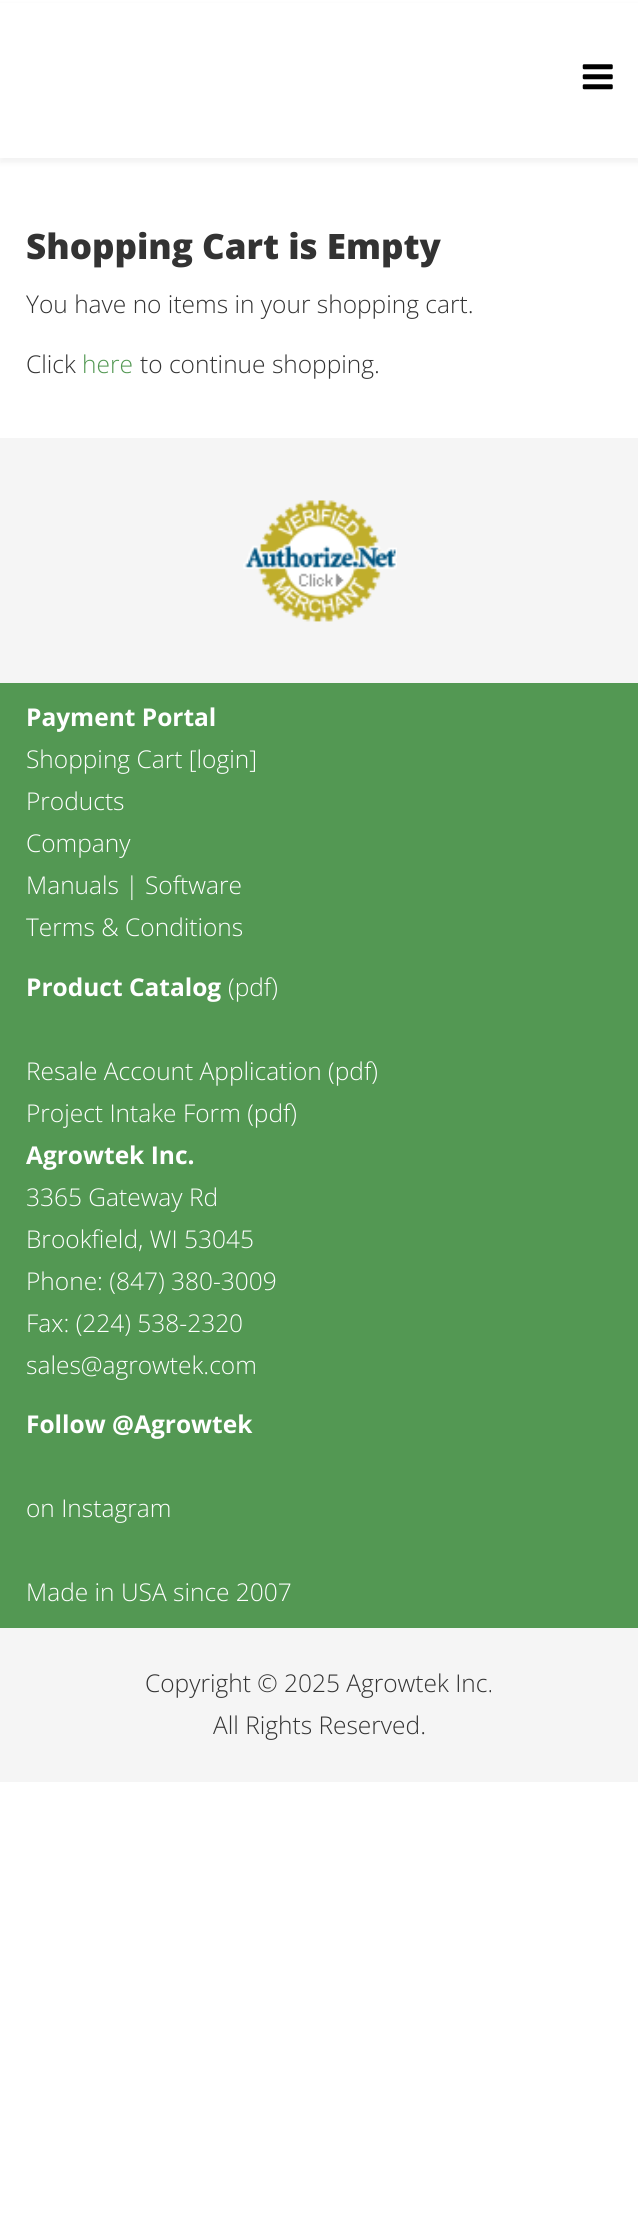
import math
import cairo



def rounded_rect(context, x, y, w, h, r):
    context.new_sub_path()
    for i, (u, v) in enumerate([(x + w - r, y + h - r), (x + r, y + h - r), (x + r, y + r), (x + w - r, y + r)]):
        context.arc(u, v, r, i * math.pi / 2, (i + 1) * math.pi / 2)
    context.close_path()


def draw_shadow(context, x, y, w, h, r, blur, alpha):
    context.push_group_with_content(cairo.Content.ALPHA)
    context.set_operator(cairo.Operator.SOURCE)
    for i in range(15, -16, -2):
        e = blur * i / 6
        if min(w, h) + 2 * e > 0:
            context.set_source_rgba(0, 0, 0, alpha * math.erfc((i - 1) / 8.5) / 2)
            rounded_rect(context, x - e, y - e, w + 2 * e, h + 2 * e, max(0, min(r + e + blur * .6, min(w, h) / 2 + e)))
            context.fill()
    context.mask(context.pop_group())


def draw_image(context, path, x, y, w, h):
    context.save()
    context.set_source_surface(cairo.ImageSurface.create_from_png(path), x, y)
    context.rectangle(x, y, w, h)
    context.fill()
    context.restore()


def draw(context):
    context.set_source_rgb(1, 1, 1)
    context.paint()
    context.set_source_rgb(0, 0, 0)
    draw_shadow(context, 0, 5, 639, 158, 0, 2.5, 0.05)
    context.set_source_rgb(1, 1, 1)
    context.rectangle(0, 3, 638, 155)
    context.fill()
    draw_image(context, "images/1.png", 582, 64, 31, 26)
    context.set_source_rgb(245 / 255, 245 / 255, 245 / 255)
    context.rectangle(0, 438, 638, 245)
    context.fill()
    draw_image(context, "images/2.png", 243, 500, 154, 122)
    context.set_source_rgb(83 / 255, 152 / 255, 83 / 255)
    context.rectangle(0, 683, 638, 945)
    context.fill()
    context.set_source_rgb(245 / 255, 245 / 255, 245 / 255)
    context.rectangle(0, 1628, 638, 154)
    context.fill()
    context.select_font_face("Open Sans ExtraBold")
    context.set_font_size(35)
    context.set_source_rgb(51 / 255, 51 / 255, 51 / 255)
    context.move_to(26, 259)
    context.show_text("Shopping Cart is Empty")
    context.select_font_face("Open Sans Light")
    context.set_font_size(24.5)
    context.move_to(26, 313)
    context.show_text("You have no items in your shopping cart.")
    context.move_to(26, 373)
    context.show_text("Click")
    context.set_source_rgb(83 / 255, 152 / 255, 83 / 255)
    context.move_to(82, 373)
    context.show_text("here")
    context.set_source_rgb(51 / 255, 51 / 255, 51 / 255)
    context.move_to(140, 373)
    context.show_text("to continue shopping.")
    context.select_font_face("Open Sans", cairo.FontSlant.NORMAL, cairo.FontWeight.BOLD)
    context.set_source_rgb(1, 1, 1)
    context.move_to(26, 726)
    context.show_text("Payment Portal")
    context.select_font_face("Open Sans Light")
    context.move_to(26, 768)
    context.show_text("Shopping Cart [login]")
    context.move_to(26, 810)
    context.show_text("Products")
    context.move_to(26, 852)
    context.show_text("Company")
    context.move_to(26, 894)
    context.show_text("Manuals | Software")
    context.move_to(26, 936)
    context.show_text("Terms & Conditions")
    context.select_font_face("Open Sans", cairo.FontSlant.NORMAL, cairo.FontWeight.BOLD)
    context.move_to(26, 996)
    context.show_text("Product Catalog")
    context.select_font_face("Open Sans Light")
    context.move_to(228, 996)
    context.show_text("(pdf)")
    context.move_to(26, 1080)
    context.show_text("Resale Account Application (pdf)")
    context.move_to(26, 1122)
    context.show_text("Project Intake Form (pdf)")
    context.select_font_face("Open Sans", cairo.FontSlant.NORMAL, cairo.FontWeight.BOLD)
    context.move_to(26, 1164)
    context.show_text("Agrowtek Inc.")
    context.select_font_face("Open Sans Light")
    context.move_to(26, 1206)
    context.show_text("3365 Gateway Rd")
    context.move_to(26, 1248)
    context.show_text("Brookfield, WI 53045")
    context.move_to(26, 1290)
    context.show_text("Phone: (847) 380-3009")
    context.move_to(26, 1332)
    context.show_text("Fax: (224) 538-2320")
    context.move_to(26, 1374)
    context.show_text("sales@agrowtek.com")
    context.select_font_face("Open Sans", cairo.FontSlant.NORMAL, cairo.FontWeight.BOLD)
    context.move_to(26, 1433)
    context.show_text("Follow @Agrowtek")
    context.select_font_face("Open Sans Light")
    context.move_to(26, 1517)
    context.show_text("on Instagram")
    context.move_to(26, 1601)
    context.show_text("Made in USA since 2007")
    context.set_source_rgb(51 / 255, 51 / 255, 51 / 255)
    context.move_to(145, 1692)
    context.show_text("Copyright © 2025 Agrowtek Inc.")
    context.move_to(213, 1734)
    context.show_text("All Rights Reserved.")


surface = cairo.ImageSurface(cairo.Format.RGB24, 638, 2239)
context = cairo.Context(surface)
options = cairo.FontOptions()
options.set_hint_metrics(cairo.HintMetrics.OFF)
options.set_hint_style(cairo.HintStyle.NONE)
context.set_font_options(options)
context.set_miter_limit(4)
draw(context)
surface.write_to_png("out.png")
